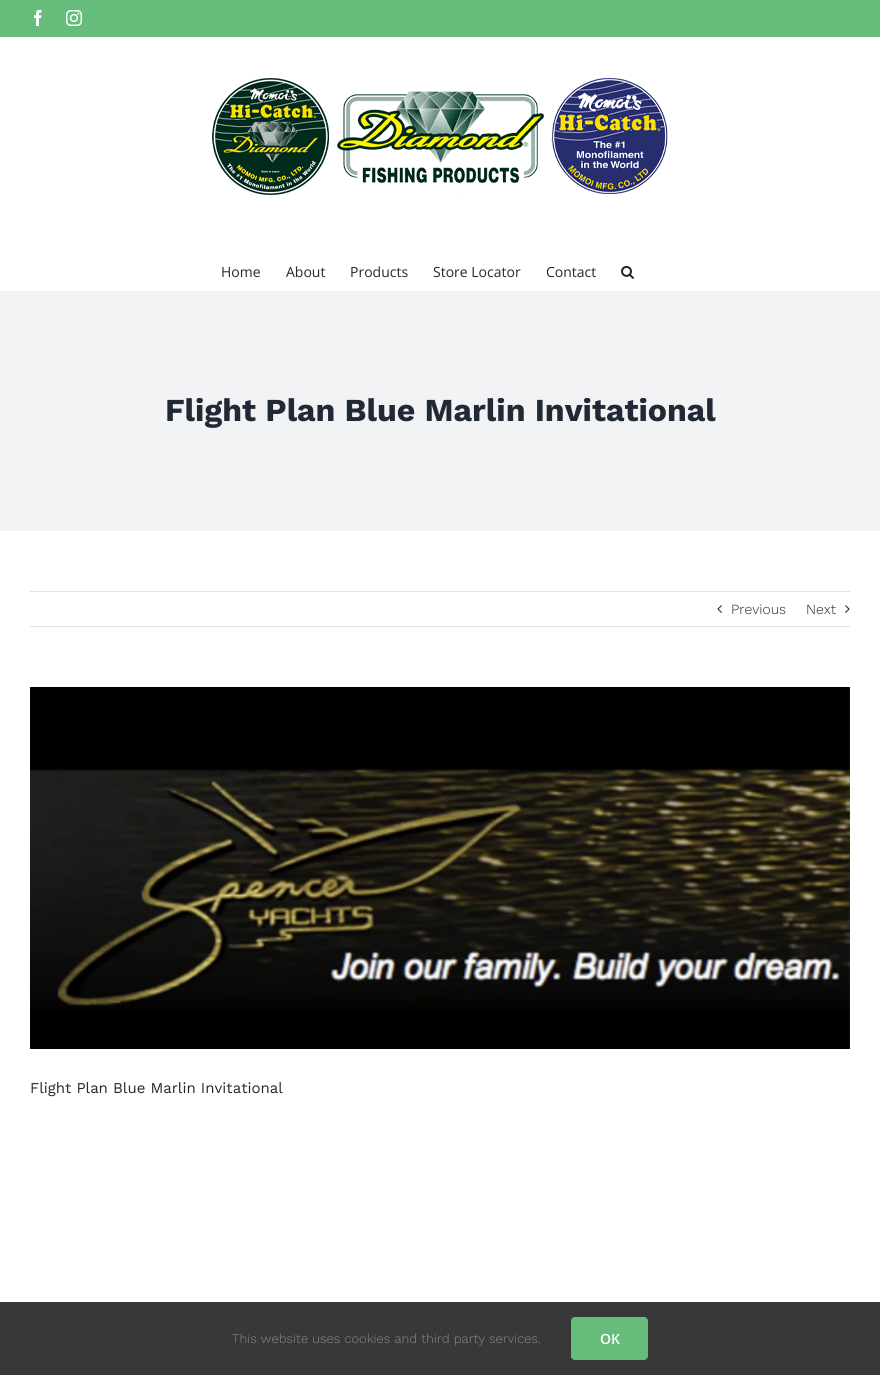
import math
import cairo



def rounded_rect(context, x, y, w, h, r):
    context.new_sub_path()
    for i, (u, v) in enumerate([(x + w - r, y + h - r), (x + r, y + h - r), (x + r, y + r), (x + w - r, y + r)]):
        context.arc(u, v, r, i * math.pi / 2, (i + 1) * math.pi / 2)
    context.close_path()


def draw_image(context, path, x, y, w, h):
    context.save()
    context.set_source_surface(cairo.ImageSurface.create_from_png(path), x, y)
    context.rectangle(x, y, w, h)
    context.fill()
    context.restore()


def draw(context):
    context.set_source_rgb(242 / 255, 243 / 255, 245 / 255)
    context.paint()
    context.set_source_rgb(101 / 255, 188 / 255, 123 / 255)
    context.rectangle(0, 0, 880, 37)
    context.fill()
    draw_image(context, "images/1.png", 34, 10, 8, 16)
    draw_image(context, "images/2.png", 66, 10, 16, 16)
    context.set_source_rgb(1, 1, 1)
    context.rectangle(0, 37, 880, 254)
    context.fill()
    draw_image(context, "images/3.png", 212, 78, 456, 117)
    draw_image(context, "images/4.png", 621, 265, 13, 14)
    context.rectangle(0, 531, 880, 771)
    context.fill()
    context.set_source_rgb(226 / 255, 226 / 255, 226 / 255)
    context.rectangle(30, 591, 820, 1)
    context.fill()
    context.rectangle(30, 626, 820, 1)
    context.fill()
    draw_image(context, "images/5.png", 717, 605, 5, 8)
    draw_image(context, "images/6.png", 845, 605, 5, 8)
    draw_image(context, "images/7.png", 30, 687, 820, 362)
    context.set_source_rgb(54 / 255, 56 / 255, 57 / 255)
    context.rectangle(0, 1302, 880, 73)
    context.fill()
    context.set_source_rgb(101 / 255, 188 / 255, 123 / 255)
    rounded_rect(context, 571, 1317, 77, 43, 4)
    context.fill()
    context.select_font_face("Open Sans")
    context.set_font_size(14)
    context.set_source_rgb(33 / 255, 41 / 255, 52 / 255)
    context.move_to(221, 277)
    context.show_text("Home")
    context.move_to(286, 277)
    context.show_text("About")
    context.move_to(350, 277)
    context.show_text("Products")
    context.move_to(433, 277)
    context.show_text("Store Locator")
    context.move_to(546, 277)
    context.show_text("Contact")
    context.select_font_face("Work Sans", cairo.FontSlant.NORMAL, cairo.FontWeight.BOLD)
    context.set_font_size(32)
    context.move_to(165, 421)
    context.show_text("Flight Plan Blue Marlin Invitational")
    context.select_font_face("Work Sans Light")
    context.set_font_size(14)
    context.move_to(731, 614)
    context.show_text("Previous")
    context.move_to(806, 614)
    context.show_text("Next")
    context.select_font_face("Work Sans")
    context.set_font_size(15)
    context.move_to(30, 1093)
    context.show_text("Flight Plan Blue Marlin Invitational")
    context.select_font_face("Work Sans Light")
    context.set_font_size(13)
    context.set_source_rgb(140 / 255, 137 / 255, 137 / 255)
    context.move_to(232, 1343)
    context.show_text("This website uses cookies and third party services.")
    context.select_font_face("Open Sans SemiBold")
    context.set_font_size(14)
    context.set_source_rgb(1, 1, 1)
    context.move_to(600, 1344)
    context.show_text("OK")


surface = cairo.ImageSurface(cairo.Format.RGB24, 880, 1375)
context = cairo.Context(surface)
options = cairo.FontOptions()
options.set_hint_metrics(cairo.HintMetrics.OFF)
options.set_hint_style(cairo.HintStyle.NONE)
context.set_font_options(options)
context.set_miter_limit(4)
draw(context)
surface.write_to_png("out.png")
